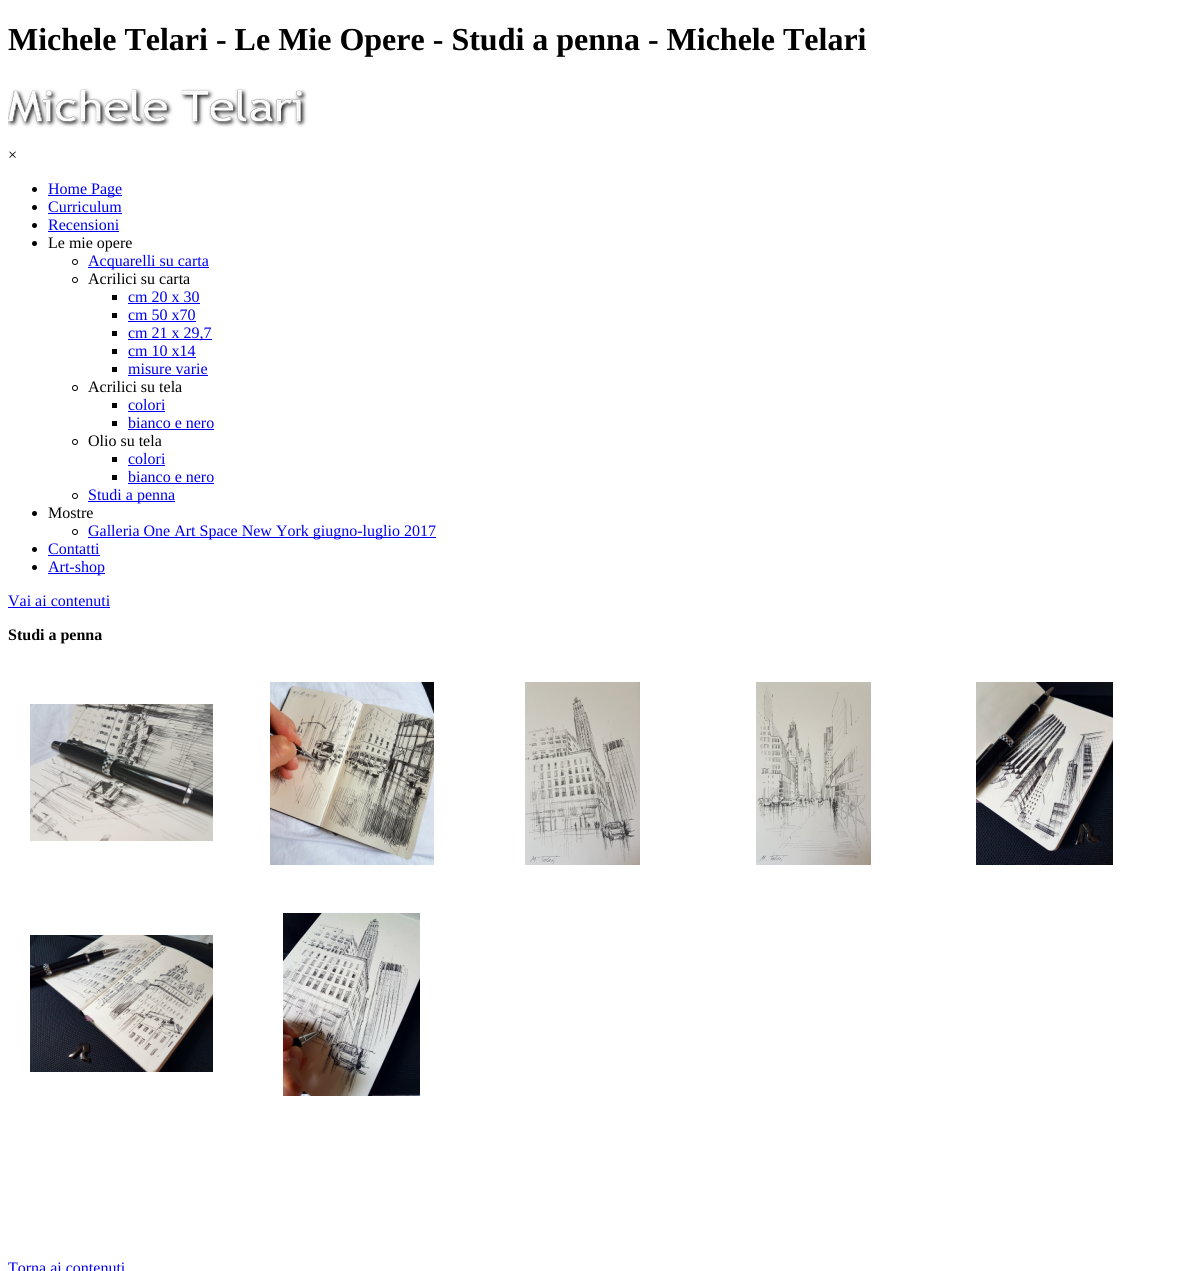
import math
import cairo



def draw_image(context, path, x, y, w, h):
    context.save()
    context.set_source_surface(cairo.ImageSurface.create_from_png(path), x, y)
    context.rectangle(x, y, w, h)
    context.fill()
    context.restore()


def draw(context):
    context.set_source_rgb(1, 1, 1)
    context.paint()
    draw_image(context, "images/1.png", 8, 88, 299, 39)
    context.set_source_rgb(0, 0, 0)
    context.arc(34.5, 189.5, 2.5, 0, 2 * math.pi)
    context.fill()
    context.set_source_rgb(0, 0, 238 / 255)
    context.rectangle(48, 195, 74, 1)
    context.fill()
    context.set_source_rgb(0, 0, 0)
    context.arc(34.5, 207.5, 2.5, 0, 2 * math.pi)
    context.fill()
    context.set_source_rgb(0, 0, 238 / 255)
    context.rectangle(48, 213, 74, 1)
    context.fill()
    context.set_source_rgb(0, 0, 0)
    context.arc(34.5, 225.5, 2.5, 0, 2 * math.pi)
    context.fill()
    context.set_source_rgb(0, 0, 238 / 255)
    context.rectangle(48, 231, 71, 1)
    context.fill()
    context.set_source_rgb(0, 0, 0)
    context.arc(34.5, 243.5, 2.5, 0, 2 * math.pi)
    context.fill()
    context.arc(75, 262, 2.5, 0, 2 * math.pi)
    context.set_line_width(1)
    context.stroke()
    context.set_source_rgb(0, 0, 238 / 255)
    context.rectangle(88, 267, 121, 1)
    context.fill()
    context.arc(75, 280, 2.5, 0, 2 * math.pi)
    context.set_source_rgb(0, 0, 0)
    context.stroke()
    context.rectangle(112, 295, 5, 5)
    context.fill()
    context.set_source_rgb(0, 0, 238 / 255)
    context.rectangle(128, 303, 72, 1)
    context.fill()
    context.set_source_rgb(0, 0, 0)
    context.rectangle(112, 313, 5, 5)
    context.fill()
    context.set_source_rgb(0, 0, 238 / 255)
    context.rectangle(128, 321, 68, 1)
    context.fill()
    context.set_source_rgb(0, 0, 0)
    context.rectangle(112, 331, 5, 5)
    context.fill()
    context.set_source_rgb(0, 0, 238 / 255)
    context.rectangle(128, 339, 84, 1)
    context.fill()
    context.set_source_rgb(0, 0, 0)
    context.rectangle(112, 349, 5, 5)
    context.fill()
    context.set_source_rgb(0, 0, 238 / 255)
    context.rectangle(128, 357, 68, 1)
    context.fill()
    context.set_source_rgb(0, 0, 0)
    context.rectangle(112, 367, 5, 5)
    context.fill()
    context.set_source_rgb(0, 0, 238 / 255)
    context.rectangle(128, 375, 80, 1)
    context.fill()
    context.arc(75, 388, 2.5, 0, 2 * math.pi)
    context.set_source_rgb(0, 0, 0)
    context.stroke()
    context.rectangle(112, 403, 5, 5)
    context.fill()
    context.set_source_rgb(0, 0, 238 / 255)
    context.rectangle(128, 411, 37, 1)
    context.fill()
    context.set_source_rgb(0, 0, 0)
    context.rectangle(112, 421, 5, 5)
    context.fill()
    context.set_source_rgb(0, 0, 238 / 255)
    context.rectangle(128, 429, 86, 1)
    context.fill()
    context.arc(75, 442, 2.5, 0, 2 * math.pi)
    context.set_source_rgb(0, 0, 0)
    context.stroke()
    context.rectangle(112, 457, 5, 5)
    context.fill()
    context.set_source_rgb(0, 0, 238 / 255)
    context.rectangle(128, 465, 37, 1)
    context.fill()
    context.set_source_rgb(0, 0, 0)
    context.rectangle(112, 475, 5, 5)
    context.fill()
    context.set_source_rgb(0, 0, 238 / 255)
    context.rectangle(128, 483, 86, 1)
    context.fill()
    context.arc(75, 496, 2.5, 0, 2 * math.pi)
    context.set_source_rgb(0, 0, 0)
    context.stroke()
    context.set_source_rgb(0, 0, 238 / 255)
    context.rectangle(88, 501, 87, 1)
    context.fill()
    context.set_source_rgb(0, 0, 0)
    context.arc(34.5, 513.5, 2.5, 0, 2 * math.pi)
    context.fill()
    context.arc(75, 532, 2.5, 0, 2 * math.pi)
    context.stroke()
    context.set_source_rgb(0, 0, 238 / 255)
    context.rectangle(88, 537, 348, 1)
    context.fill()
    context.set_source_rgb(0, 0, 0)
    context.arc(34.5, 549.5, 2.5, 0, 2 * math.pi)
    context.fill()
    context.set_source_rgb(0, 0, 238 / 255)
    context.rectangle(48, 555, 52, 1)
    context.fill()
    context.set_source_rgb(0, 0, 0)
    context.arc(34.5, 567.5, 2.5, 0, 2 * math.pi)
    context.fill()
    context.set_source_rgb(0, 0, 238 / 255)
    context.rectangle(48, 573, 57, 1)
    context.fill()
    context.rectangle(8, 607, 102, 1)
    context.fill()
    draw_image(context, "images/2.png", 30, 704, 183, 137)
    draw_image(context, "images/3.png", 270, 682, 164, 183)
    draw_image(context, "images/4.png", 525, 682, 115, 183)
    draw_image(context, "images/5.png", 756, 682, 115, 183)
    draw_image(context, "images/6.png", 976, 682, 137, 183)
    draw_image(context, "images/7.png", 30, 935, 183, 137)
    draw_image(context, "images/8.png", 283, 913, 137, 183)
    context.select_font_face("Liberation Serif", cairo.FontSlant.NORMAL, cairo.FontWeight.BOLD)
    context.set_font_size(32)
    context.set_source_rgb(0, 0, 0)
    context.move_to(8, 50)
    context.show_text("Michele Telari - Le Mie Opere - Studi a penna - Michele Telari")
    context.select_font_face("Liberation Serif")
    context.set_font_size(16)
    context.move_to(8, 160)
    context.show_text("×")
    context.set_source_rgb(0, 0, 238 / 255)
    context.move_to(48, 194)
    context.show_text("Home Page")
    context.move_to(48, 212)
    context.show_text("Curriculum")
    context.move_to(48, 230)
    context.show_text("Recensioni")
    context.set_source_rgb(0, 0, 0)
    context.move_to(48, 248)
    context.show_text("Le mie opere")
    context.set_source_rgb(0, 0, 238 / 255)
    context.move_to(88, 266)
    context.show_text("Acquarelli su carta")
    context.set_source_rgb(0, 0, 0)
    context.move_to(88, 284)
    context.show_text("Acrilici su carta")
    context.set_source_rgb(0, 0, 238 / 255)
    context.move_to(128, 302)
    context.show_text("cm 20 x 30")
    context.move_to(128, 320)
    context.show_text("cm 50 x70")
    context.move_to(128, 338)
    context.show_text("cm 21 x 29,7")
    context.move_to(128, 356)
    context.show_text("cm 10 x14")
    context.move_to(128, 374)
    context.show_text("misure varie")
    context.set_source_rgb(0, 0, 0)
    context.move_to(88, 392)
    context.show_text("Acrilici su tela")
    context.set_source_rgb(0, 0, 238 / 255)
    context.move_to(128, 410)
    context.show_text("colori")
    context.move_to(128, 428)
    context.show_text("bianco e nero")
    context.set_source_rgb(0, 0, 0)
    context.move_to(88, 446)
    context.show_text("Olio su tela")
    context.set_source_rgb(0, 0, 238 / 255)
    context.move_to(128, 464)
    context.show_text("colori")
    context.move_to(128, 482)
    context.show_text("bianco e nero")
    context.move_to(88, 500)
    context.show_text("Studi a penna")
    context.set_source_rgb(0, 0, 0)
    context.move_to(48, 518)
    context.show_text("Mostre")
    context.set_source_rgb(0, 0, 238 / 255)
    context.move_to(88, 536)
    context.show_text("Galleria One Art Space New York giugno-luglio 2017")
    context.move_to(48, 554)
    context.show_text("Contatti")
    context.move_to(48, 572)
    context.show_text("Art-shop")
    context.move_to(8, 606)
    context.show_text("Vai ai contenuti")
    context.select_font_face("Liberation Serif", cairo.FontSlant.NORMAL, cairo.FontWeight.BOLD)
    context.set_source_rgb(0, 0, 0)
    context.move_to(8, 640)
    context.show_text("Studi a penna")
    context.select_font_face("Liberation Serif")
    context.set_source_rgb(0, 0, 238 / 255)
    context.move_to(8, 1273)
    context.show_text("Torna ai contenuti")


surface = cairo.ImageSurface(cairo.Format.RGB24, 1182, 1271)
context = cairo.Context(surface)
options = cairo.FontOptions()
options.set_hint_metrics(cairo.HintMetrics.OFF)
options.set_hint_style(cairo.HintStyle.NONE)
context.set_font_options(options)
context.set_miter_limit(4)
draw(context)
surface.write_to_png("out.png")
